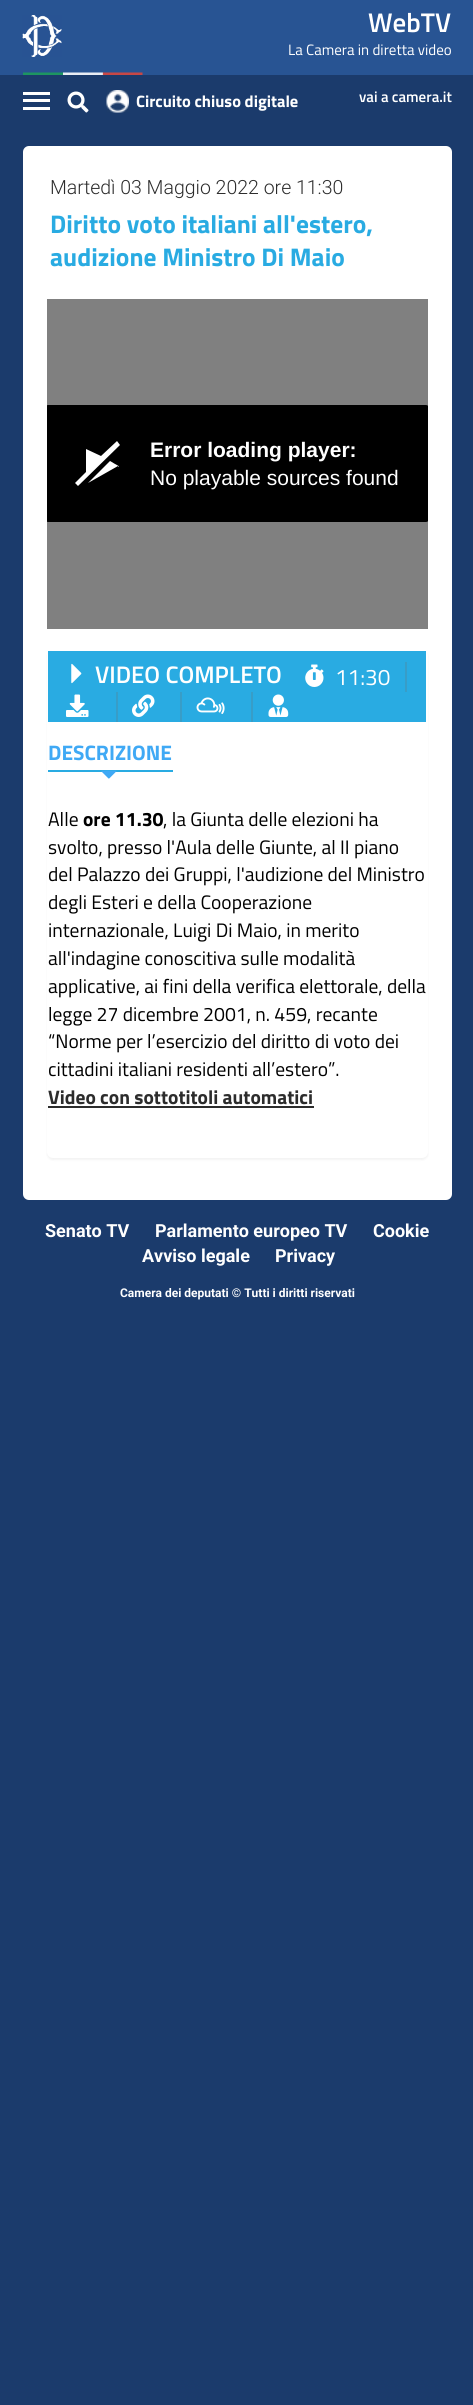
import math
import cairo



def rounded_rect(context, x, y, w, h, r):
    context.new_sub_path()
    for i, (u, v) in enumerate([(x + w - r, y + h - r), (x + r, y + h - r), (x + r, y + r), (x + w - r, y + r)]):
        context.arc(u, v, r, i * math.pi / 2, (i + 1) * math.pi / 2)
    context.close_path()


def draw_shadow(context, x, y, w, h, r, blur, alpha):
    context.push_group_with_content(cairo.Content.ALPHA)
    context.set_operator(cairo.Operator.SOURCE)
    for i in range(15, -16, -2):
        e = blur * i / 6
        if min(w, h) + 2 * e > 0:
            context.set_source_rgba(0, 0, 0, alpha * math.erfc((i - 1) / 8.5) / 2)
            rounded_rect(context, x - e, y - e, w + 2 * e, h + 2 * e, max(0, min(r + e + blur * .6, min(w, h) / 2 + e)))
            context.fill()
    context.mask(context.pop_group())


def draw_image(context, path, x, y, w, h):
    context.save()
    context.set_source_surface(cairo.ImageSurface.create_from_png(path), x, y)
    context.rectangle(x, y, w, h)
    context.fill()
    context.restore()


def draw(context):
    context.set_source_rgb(27 / 255, 59 / 255, 108 / 255)
    context.paint()
    context.set_source_rgb(40 / 255, 84 / 255, 147 / 255)
    context.rectangle(0, 0, 473, 75)
    context.fill()
    draw_image(context, "images/1.png", 22, 15, 121, 60)
    context.set_source_rgb(1, 1, 1)
    context.rectangle(23, 92, 27, 3)
    context.fill()
    context.rectangle(23, 99, 27, 3)
    context.fill()
    context.rectangle(23, 107, 27, 3)
    context.fill()
    draw_image(context, "images/2.png", 67, 91, 22, 22)
    draw_image(context, "images/3.png", 106, 90, 23, 23)
    rounded_rect(context, 24, 147, 427, 1052, 5)
    context.fill_preserve()
    context.stroke()
    context.set_source_rgb(128 / 255, 128 / 255, 128 / 255)
    context.rectangle(47, 299, 381, 330)
    context.fill()
    context.save()
    context.rectangle(47, 299, 381, 330)
    context.clip()
    context.set_source_rgb(0, 0, 0)
    rounded_rect(context, 45, 405, 384, 117, 3)
    context.fill()
    context.restore()
    context.set_source_rgb(1, 1, 1)
    context.new_path()
    context.move_to(118, 466)
    context.line_to(88, 483)
    context.line_to(110, 461)
    context.curve_to(118, 466, 120, 466, 118, 467)
    context.close_path()
    context.move_to(117, 441)
    context.line_to(101, 456)
    context.line_to(86, 449)
    context.line_to(86, 472)
    context.line_to(75, 483)
    context.line_to(78, 486)
    context.line_to(120, 445)
    context.close_path()
    context.fill()
    context.set_source_rgb(0, 0, 0)
    draw_shadow(context, 47, 651, 381, 509, 6, 1, 0.05)
    context.set_source_rgb(1, 1, 1)
    rounded_rect(context, 48, 651, 379, 506, 5)
    context.fill_preserve()
    context.stroke()
    context.set_source_rgb(41 / 255, 171 / 255, 226 / 255)
    context.rectangle(48, 651, 378, 71)
    context.fill()
    draw_image(context, "images/4.png", 71, 663, 11, 21)
    draw_image(context, "images/5.png", 305, 664, 19, 23)
    context.set_source_rgb(56 / 255, 157 / 255, 199 / 255)
    context.rectangle(405, 662, 2, 30)
    context.fill()
    draw_image(context, "images/6.png", 66, 694, 23, 23)
    context.rectangle(116, 692, 2, 30)
    context.fill()
    draw_image(context, "images/7.png", 132, 694, 23, 23)
    context.rectangle(180, 692, 2, 30)
    context.fill()
    draw_image(context, "images/8.png", 196, 697, 29, 17)
    context.rectangle(251, 692, 2, 30)
    context.fill()
    draw_image(context, "images/9.png", 268, 694, 21, 23)
    context.set_source_rgb(41 / 255, 171 / 255, 226 / 255)
    context.rectangle(48, 770, 125, 2)
    context.fill()
    draw_image(context, "images/10.png", 101, 770, 16, 9)
    context.set_source_rgb(44 / 255, 44 / 255, 44 / 255)
    context.rectangle(48, 1106, 266, 2)
    context.fill()
    context.select_font_face("Titillium Web SemiBold")
    context.set_font_size(27)
    context.set_source_rgb(1, 1, 1)
    context.move_to(368, 32)
    context.show_text("WebTV")
    context.select_font_face("Titillium Web")
    context.set_font_size(15)
    context.move_to(288, 55)
    context.show_text("La Camera in diretta video")
    context.select_font_face("Titillium Web", cairo.FontSlant.NORMAL, cairo.FontWeight.BOLD)
    context.set_font_size(16.5)
    context.move_to(136, 107)
    context.show_text("Circuito chiuso digitale")
    context.select_font_face("Titillium Web SemiBold")
    context.set_font_size(15)
    context.move_to(359, 102)
    context.show_text("vai a camera.it")
    context.select_font_face("Roboto Light")
    context.set_font_size(19.5)
    context.set_source_rgb(44 / 255, 44 / 255, 44 / 255)
    context.move_to(50, 194)
    context.show_text("Martedì 03 Maggio 2022 ore 11:30")
    context.select_font_face("Titillium Web", cairo.FontSlant.NORMAL, cairo.FontWeight.BOLD)
    context.set_font_size(25.5)
    context.set_source_rgb(41 / 255, 171 / 255, 226 / 255)
    context.move_to(50, 233)
    context.show_text("Diritto voto italiani all'estero,")
    context.move_to(50, 266)
    context.show_text("audizione Ministro Di Maio")
    context.select_font_face("Liberation Sans", cairo.FontSlant.NORMAL, cairo.FontWeight.BOLD)
    context.set_font_size(21)
    context.set_source_rgb(1, 1, 1)
    context.move_to(150, 457)
    context.show_text("Error loading player:")
    context.select_font_face("Liberation Sans")
    context.move_to(150, 485)
    context.show_text("No playable sources found")
    context.select_font_face("Titillium Web SemiBold")
    context.set_font_size(24)
    context.move_to(95, 683)
    context.show_text("VIDEO COMPLETO")
    context.select_font_face("Titillium Web")
    context.set_font_size(22.5)
    context.move_to(335, 685)
    context.show_text("11:30")
    context.select_font_face("Titillium Web", cairo.FontSlant.NORMAL, cairo.FontWeight.BOLD)
    context.set_font_size(21)
    context.set_source_rgb(63 / 255, 169 / 255, 245 / 255)
    context.move_to(48, 760)
    context.show_text("DESCRIZIONE")
    context.select_font_face("Titillium Web")
    context.set_font_size(19.5)
    context.set_source_rgb(0, 0, 0)
    context.move_to(48, 826)
    context.show_text("Alle")
    context.select_font_face("Titillium Web", cairo.FontSlant.NORMAL, cairo.FontWeight.BOLD)
    context.move_to(83, 826)
    context.show_text("ore 11.30")
    context.select_font_face("Titillium Web")
    context.move_to(163, 826)
    context.show_text(", la Giunta delle elezioni ha")
    context.move_to(48, 854)
    context.show_text("svolto, presso l'Aula delle Giunte, al II piano")
    context.move_to(48, 881)
    context.show_text("del Palazzo dei Gruppi, l'audizione del Ministro")
    context.move_to(48, 909)
    context.show_text("degli Esteri e della Cooperazione")
    context.move_to(48, 937)
    context.show_text("internazionale, Luigi Di Maio, in merito")
    context.move_to(48, 965)
    context.show_text("all'indagine conoscitiva sulle modalità")
    context.move_to(48, 993)
    context.show_text("applicative, ai fini della verifica elettorale, della")
    context.move_to(48, 1021)
    context.show_text("legge 27 dicembre 2001, n. 459, recante")
    context.move_to(48, 1048)
    context.show_text("“Norme per l’esercizio del diritto di voto dei")
    context.move_to(48, 1076)
    context.show_text("cittadini italiani residenti all’estero”.")
    context.select_font_face("Titillium Web", cairo.FontSlant.NORMAL, cairo.FontWeight.BOLD)
    context.set_source_rgb(44 / 255, 44 / 255, 44 / 255)
    context.move_to(48, 1104)
    context.show_text("Video con sottotitoli automatici")
    context.select_font_face("Roboto", cairo.FontSlant.NORMAL, cairo.FontWeight.BOLD)
    context.set_font_size(18)
    context.set_source_rgb(1, 1, 1)
    context.move_to(45, 1237)
    context.show_text("Senato TV")
    context.move_to(155, 1237)
    context.show_text("Parlamento europeo TV")
    context.move_to(373, 1237)
    context.show_text("Cookie")
    context.move_to(142, 1262)
    context.show_text("Avviso legale")
    context.move_to(275, 1262)
    context.show_text("Privacy")
    context.set_font_size(12)
    context.move_to(120, 1297)
    context.show_text("Camera dei deputati © Tutti i diritti riservati")


surface = cairo.ImageSurface(cairo.Format.RGB24, 473, 2405)
context = cairo.Context(surface)
options = cairo.FontOptions()
options.set_hint_metrics(cairo.HintMetrics.OFF)
options.set_hint_style(cairo.HintStyle.NONE)
context.set_font_options(options)
context.set_miter_limit(4)
draw(context)
surface.write_to_png("out.png")
